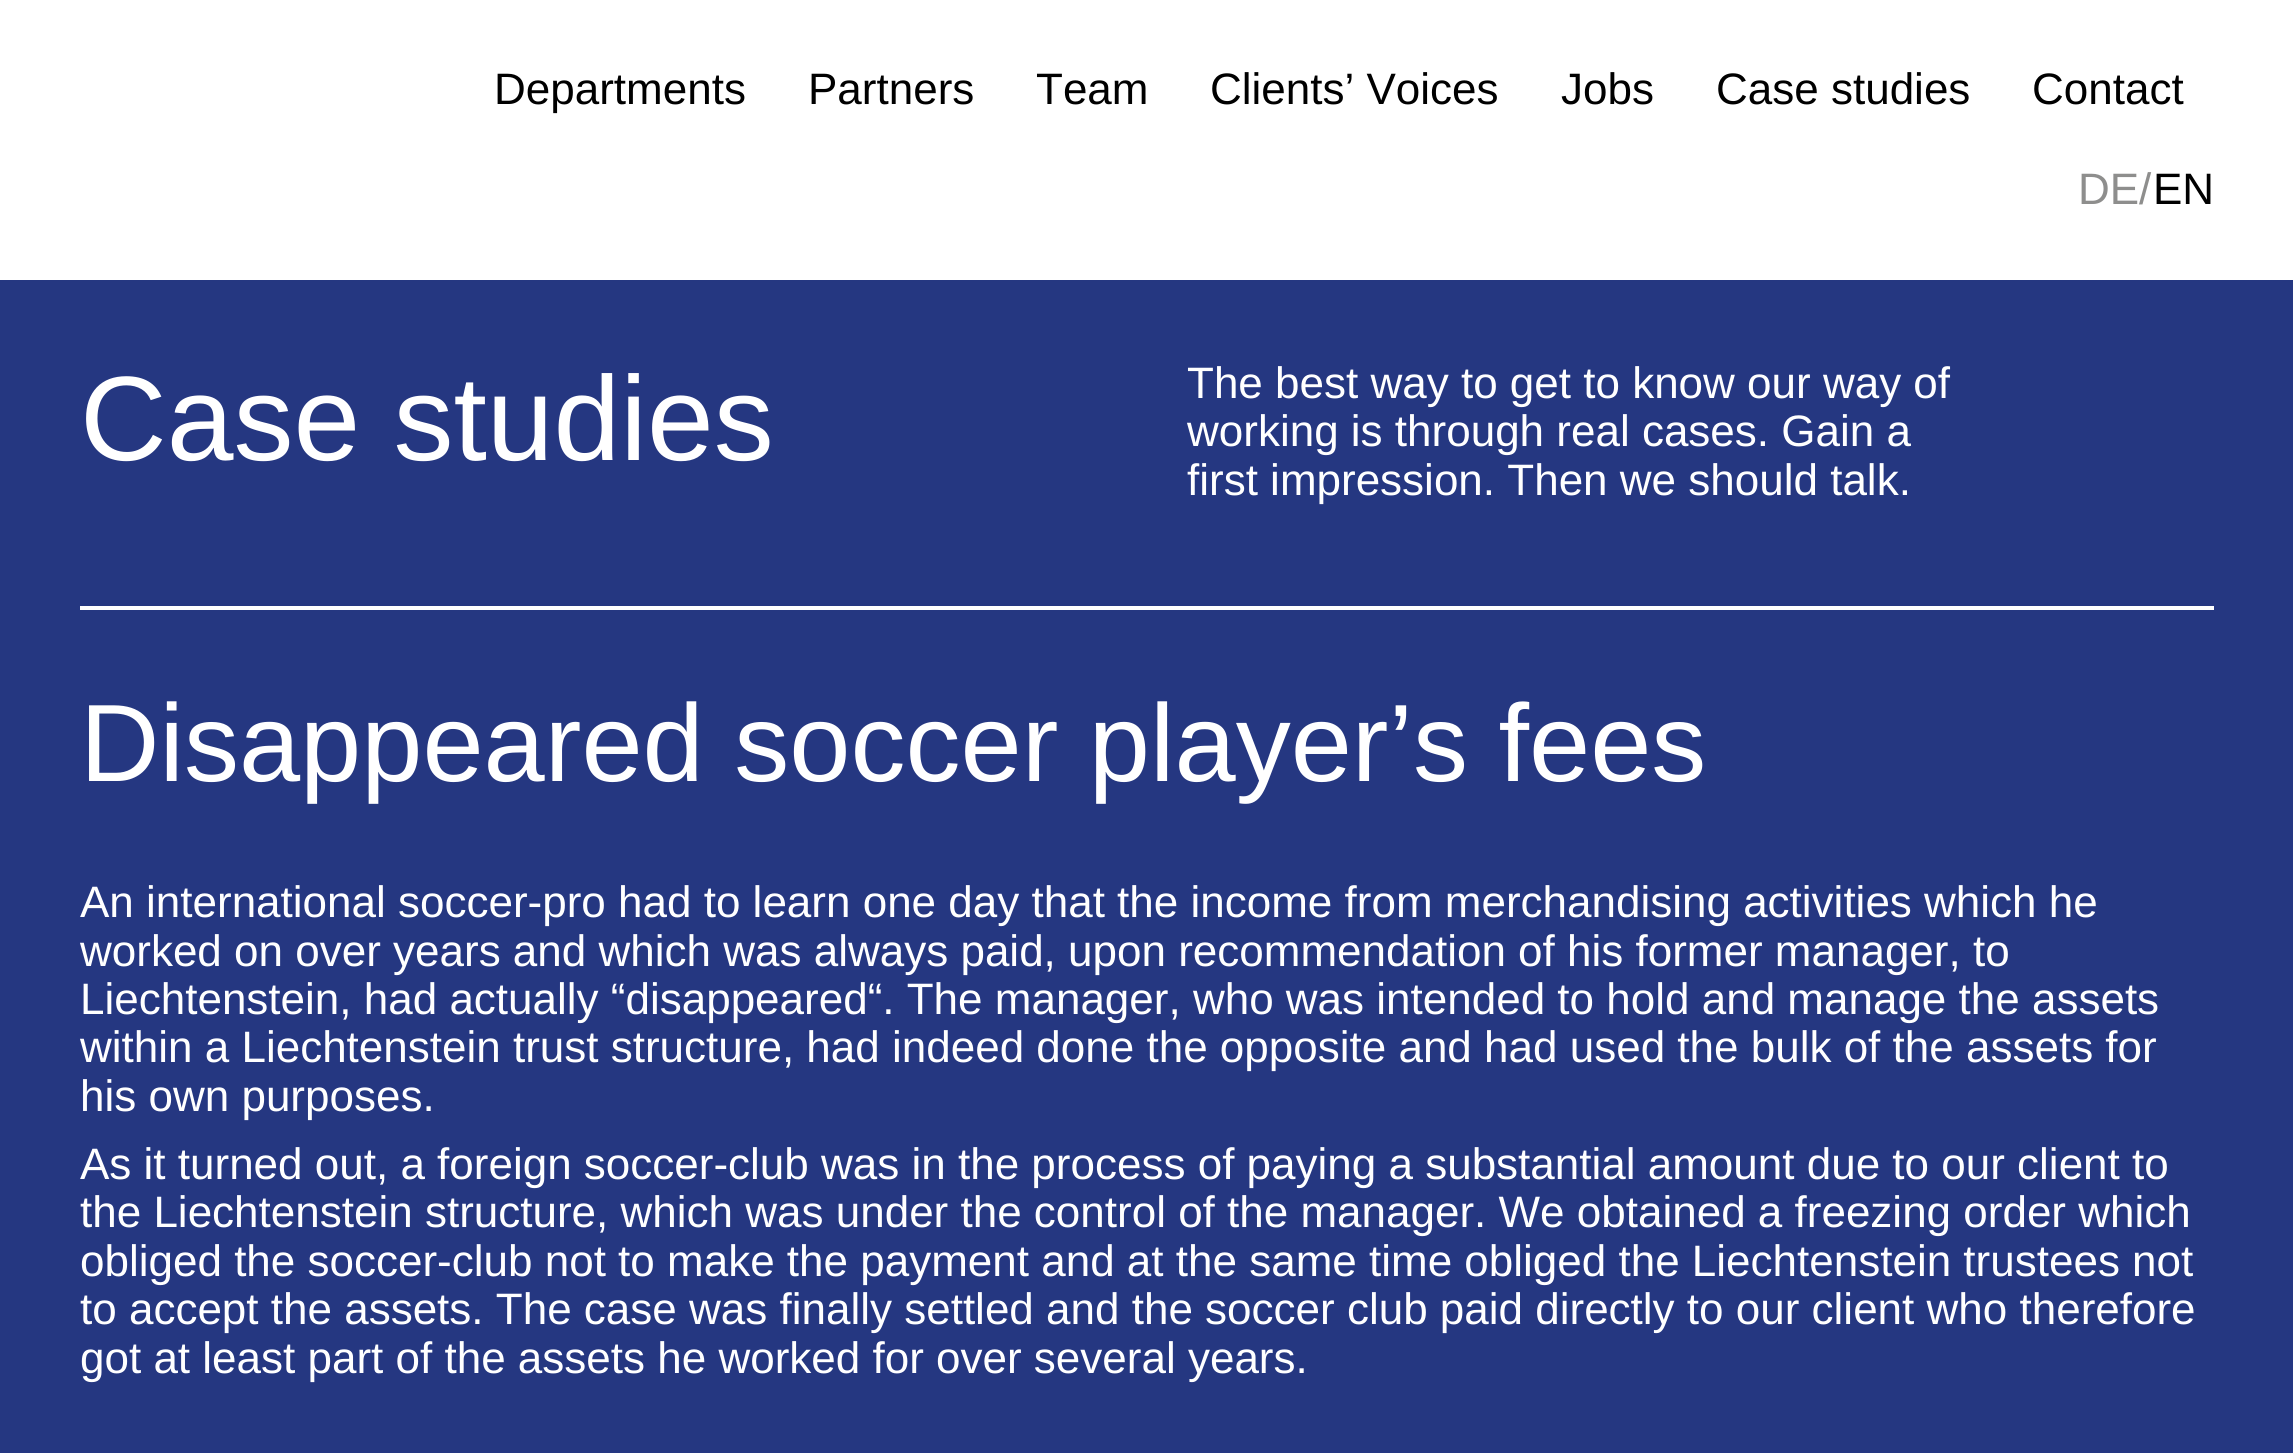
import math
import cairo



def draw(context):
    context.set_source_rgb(1, 1, 1)
    context.paint()
    context.set_source_rgb(37 / 255, 55 / 255, 129 / 255)
    context.rectangle(0, 280, 2293, 1173)
    context.fill()
    context.set_source_rgb(1, 1, 1)
    context.rectangle(80, 606, 2134, 4)
    context.fill()
    context.select_font_face("Liberation Sans")
    context.set_font_size(44)
    context.set_source_rgb(0, 0, 0)
    context.move_to(494, 104)
    context.show_text("Departments")
    context.move_to(808, 104)
    context.show_text("Partners")
    context.move_to(1036, 104)
    context.show_text("Team")
    context.move_to(1210, 104)
    context.show_text("Clients’ Voices")
    context.move_to(1561, 104)
    context.show_text("Jobs")
    context.move_to(1716, 104)
    context.show_text("Case studies")
    context.move_to(2032, 104)
    context.show_text("Contact")
    context.set_source_rgb(142 / 255, 142 / 255, 141 / 255)
    context.move_to(2078, 204)
    context.show_text("DE/")
    context.set_source_rgb(0, 0, 0)
    context.move_to(2153, 204)
    context.show_text("EN")
    context.set_font_size(120)
    context.set_source_rgb(1, 1, 1)
    context.move_to(80, 460)
    context.show_text("Case studies")
    context.set_font_size(44)
    context.move_to(1187, 398)
    context.show_text("The best way to get to know our way of")
    context.move_to(1187, 446)
    context.show_text("working is through real cases. Gain a")
    context.move_to(1187, 495)
    context.show_text("first impression. Then we should talk.")
    context.set_font_size(110)
    context.move_to(80, 781)
    context.show_text("Disappeared soccer player’s fees")
    context.set_font_size(44)
    context.move_to(80, 917)
    context.show_text("An international soccer-pro had to learn one day that the income from merchandising activities which he")
    context.move_to(80, 966)
    context.show_text("worked on over years and which was always paid, upon recommendation of his former manager, to")
    context.move_to(80, 1014)
    context.show_text("Liechtenstein, had actually “disappeared“. The manager, who was intended to hold and manage the assets")
    context.move_to(80, 1062)
    context.show_text("within a Liechtenstein trust structure, had indeed done the opposite and had used the bulk of the assets for")
    context.move_to(80, 1111)
    context.show_text("his own purposes.")
    context.move_to(80, 1179)
    context.show_text("As it turned out, a foreign soccer-club was in the process of paying a substantial amount due to our client to")
    context.move_to(80, 1227)
    context.show_text("the Liechtenstein structure, which was under the control of the manager. We obtained a freezing order which")
    context.move_to(80, 1276)
    context.show_text("obliged the soccer-club not to make the payment and at the same time obliged the Liechtenstein trustees not")
    context.move_to(80, 1324)
    context.show_text("to accept the assets. The case was finally settled and the soccer club paid directly to our client who therefore")
    context.move_to(80, 1373)
    context.show_text("got at least part of the assets he worked for over several years.")


surface = cairo.ImageSurface(cairo.Format.RGB24, 2293, 1453)
context = cairo.Context(surface)
options = cairo.FontOptions()
options.set_hint_metrics(cairo.HintMetrics.OFF)
options.set_hint_style(cairo.HintStyle.NONE)
context.set_font_options(options)
context.set_miter_limit(4)
draw(context)
surface.write_to_png("out.png")
